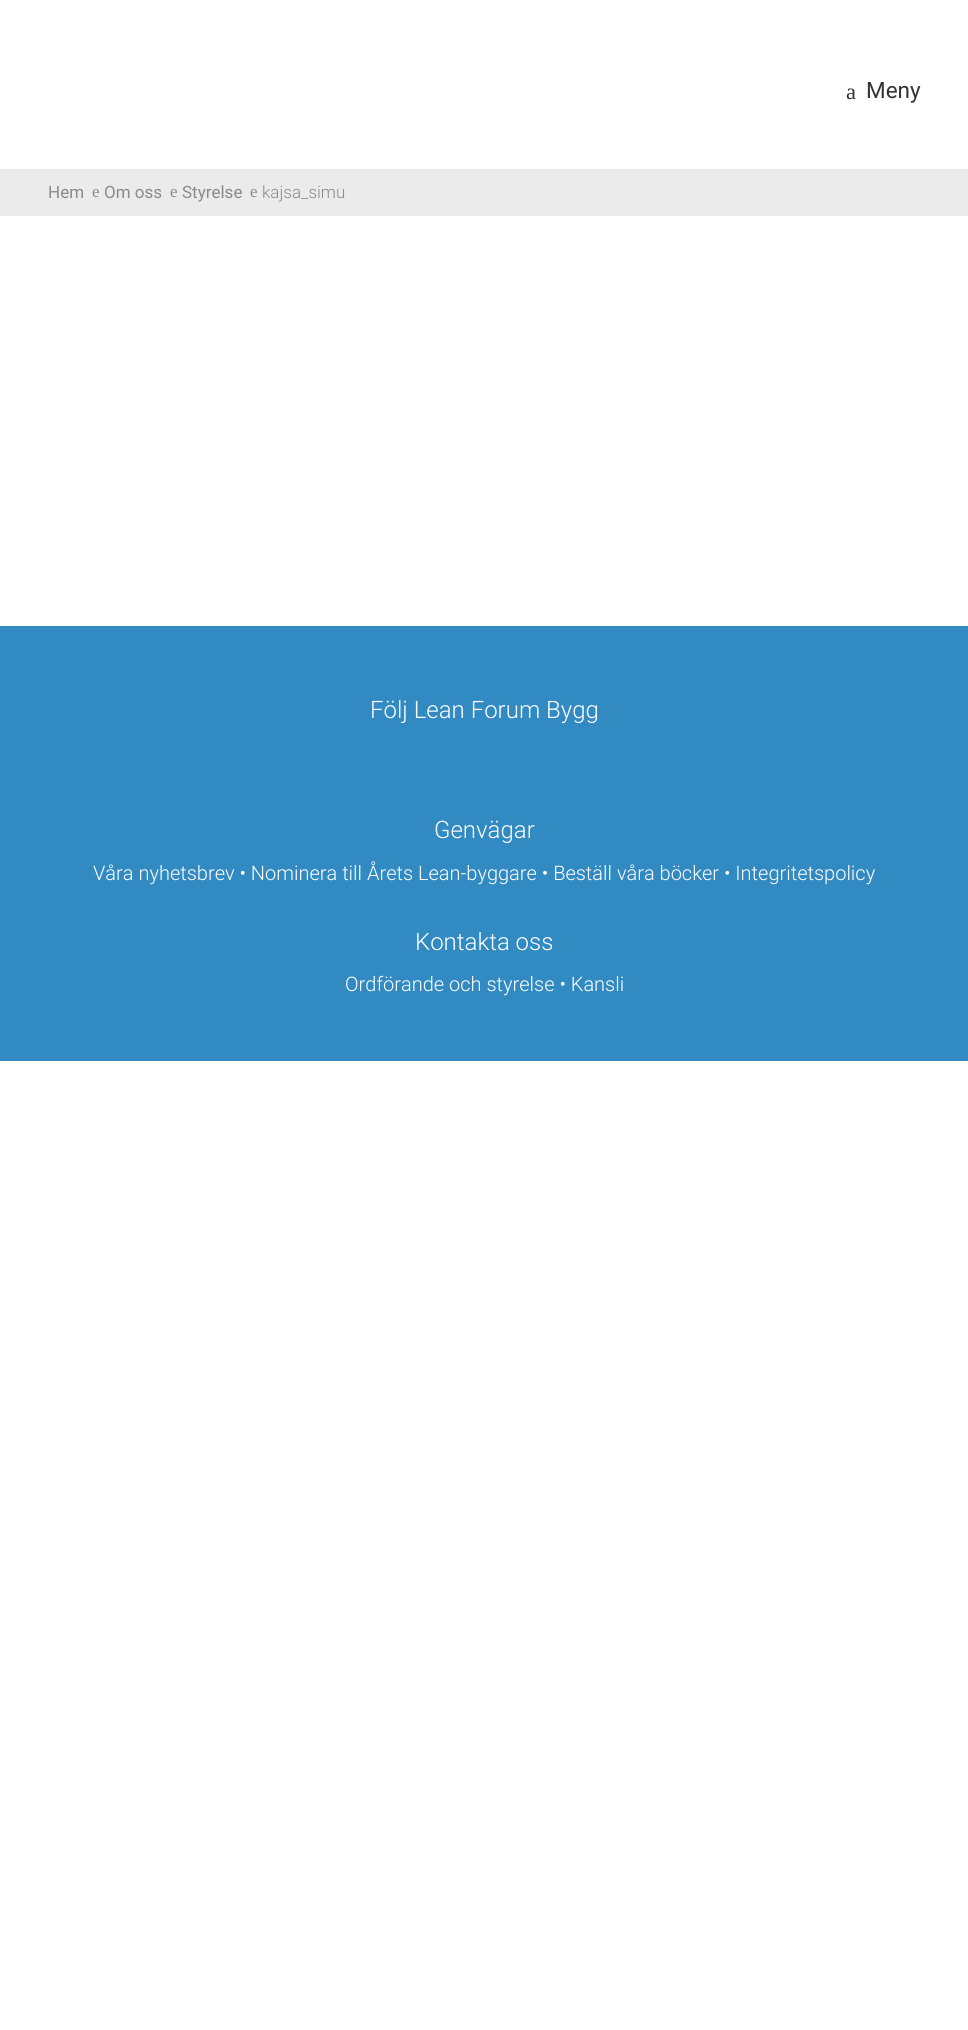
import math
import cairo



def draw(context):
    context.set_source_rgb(1, 1, 1)
    context.paint()
    context.set_source_rgb(235 / 255, 235 / 255, 235 / 255)
    context.rectangle(0, 169, 968, 47)
    context.fill()
    context.set_source_rgb(50 / 255, 138 / 255, 195 / 255)
    context.rectangle(0, 626, 968, 435)
    context.fill()
    context.select_font_face("Liberation Serif")
    context.set_font_size(22.5)
    context.set_source_rgb(51 / 255, 51 / 255, 51 / 255)
    context.move_to(846, 99)
    context.show_text("a")
    context.select_font_face("Roboto")
    context.move_to(866, 98)
    context.show_text("Meny")
    context.set_font_size(17)
    context.set_source_rgb(138 / 255, 138 / 255, 138 / 255)
    context.move_to(48, 198)
    context.show_text("Hem")
    context.select_font_face("Liberation Serif")
    context.move_to(92, 197)
    context.show_text("e")
    context.select_font_face("Roboto")
    context.move_to(104, 198)
    context.show_text("Om oss")
    context.select_font_face("Liberation Serif")
    context.move_to(170, 197)
    context.show_text("e")
    context.select_font_face("Roboto")
    context.move_to(182, 198)
    context.show_text("Styrelse")
    context.select_font_face("Liberation Serif")
    context.move_to(250, 197)
    context.show_text("e")
    context.select_font_face("Roboto Light")
    context.move_to(262, 198)
    context.show_text("kajsa_simu")
    context.set_font_size(24)
    context.set_source_rgb(1, 1, 1)
    context.move_to(370, 718)
    context.show_text("Följ Lean Forum Bygg")
    context.move_to(434, 838)
    context.show_text("Genvägar")
    context.set_font_size(20)
    context.move_to(93, 880)
    context.show_text("Våra nyhetsbrev • Nominera till Årets Lean-byggare • Beställ våra böcker • Integritetspolicy")
    context.set_font_size(24)
    context.move_to(415, 950)
    context.show_text("Kontakta oss")
    context.set_font_size(20)
    context.move_to(345, 991)
    context.show_text("Ordförande och styrelse • Kansli")


surface = cairo.ImageSurface(cairo.Format.RGB24, 968, 2030)
context = cairo.Context(surface)
options = cairo.FontOptions()
options.set_hint_metrics(cairo.HintMetrics.OFF)
options.set_hint_style(cairo.HintStyle.NONE)
context.set_font_options(options)
context.set_miter_limit(4)
draw(context)
surface.write_to_png("out.png")
